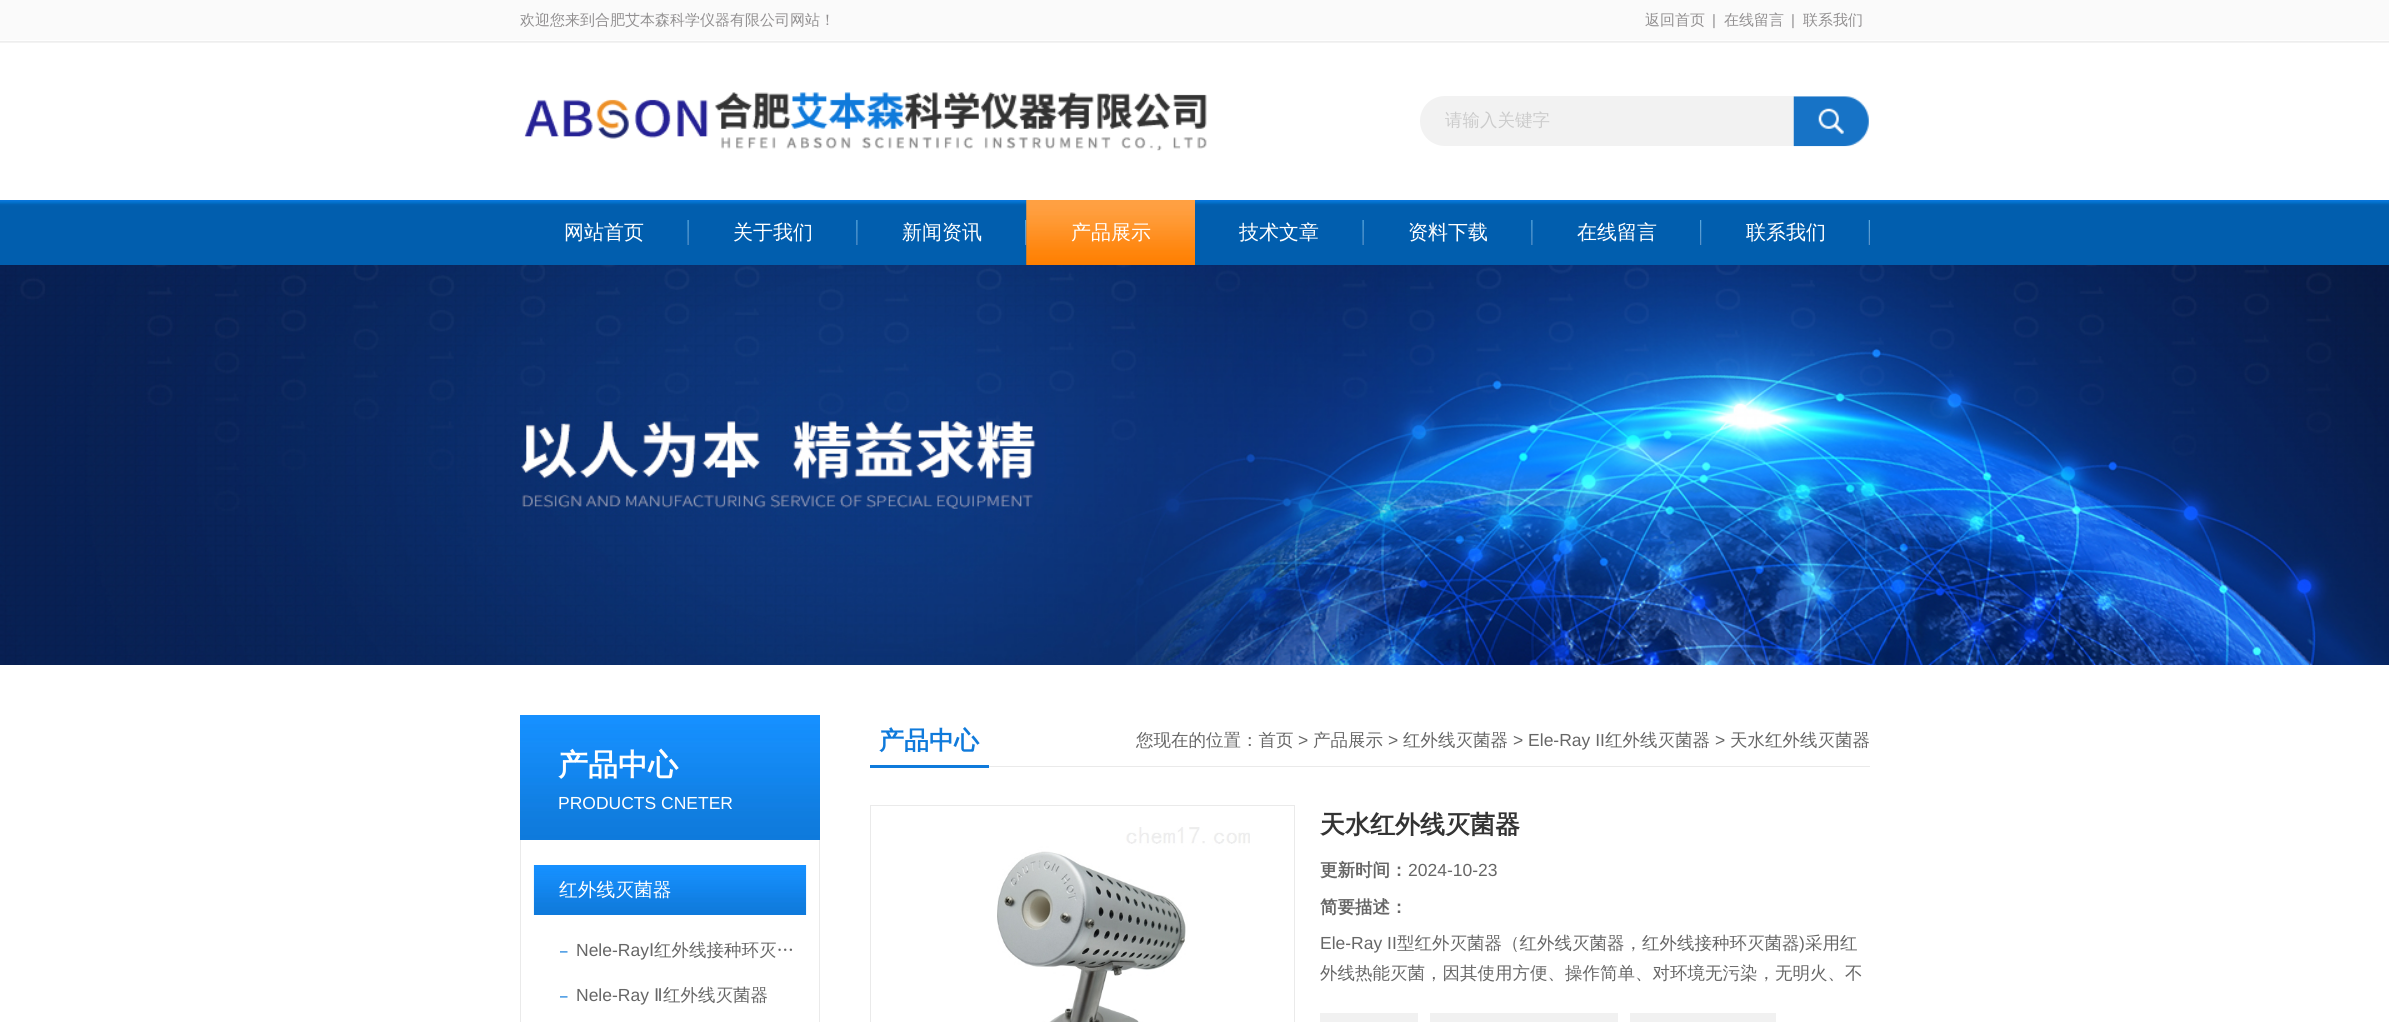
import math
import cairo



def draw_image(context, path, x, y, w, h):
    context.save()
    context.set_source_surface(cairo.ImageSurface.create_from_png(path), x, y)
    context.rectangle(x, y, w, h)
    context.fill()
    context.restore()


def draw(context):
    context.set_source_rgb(1, 1, 1)
    context.paint()
    draw_image(context, "images/1.png", 0, 0, 2389, 43)
    draw_image(context, "images/2.png", 524, 92, 683, 59)
    context.set_source_rgb(242 / 255, 242 / 255, 242 / 255)
    context.new_path()
    context.move_to(1445, 96)
    context.line_to(1794, 96)
    context.line_to(1794, 146)
    context.line_to(1445, 146)
    context.curve_to(1431, 146, 1420, 135, 1420, 121)
    context.curve_to(1420, 107, 1431, 96, 1445, 96)
    context.close_path()
    context.fill()
    draw_image(context, "images/3.png", 1793, 96, 76, 51)
    draw_image(context, "images/4.png", 0, 200, 2389, 65)
    draw_image(context, "images/5.png", 687, 220, 2, 25)
    draw_image(context, "images/6.png", 856, 220, 2, 25)
    draw_image(context, "images/7.png", 1025, 220, 2, 25)
    draw_image(context, "images/8.png", 1026, 200, 169, 65)
    draw_image(context, "images/5.png", 1362, 220, 2, 25)
    draw_image(context, "images/6.png", 1531, 220, 2, 25)
    draw_image(context, "images/7.png", 1700, 220, 2, 25)
    draw_image(context, "images/9.png", 1868, 220, 2, 25)
    draw_image(context, "images/10.png", 0, 265, 2389, 400)
    draw_image(context, "images/11.png", 520, 715, 300, 125)
    context.set_source_rgb(234 / 255, 234 / 255, 234 / 255)
    context.rectangle(819, 840, 1, 182)
    context.fill()
    context.rectangle(520, 840, 1, 182)
    context.fill()
    draw_image(context, "images/12.png", 533, 865, 274, 50)
    draw_image(context, "images/13.png", 560, 951, 8, 2)
    draw_image(context, "images/13.png", 560, 996, 8, 2)
    context.rectangle(989, 766, 881, 1)
    context.fill()
    context.set_source_rgb(15 / 255, 122 / 255, 219 / 255)
    context.rectangle(870, 765, 119, 3)
    context.fill()
    context.rectangle(870.5, 805.5, 424, 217)
    context.set_source_rgb(234 / 255, 234 / 255, 234 / 255)
    context.set_line_width(1)
    context.stroke()
    draw_image(context, "images/14.png", 997, 827, 253, 195)
    context.set_source_rgb(241 / 255, 241 / 255, 241 / 255)
    context.rectangle(1320, 1013, 98, 9)
    context.fill()
    context.rectangle(1430, 1013, 188, 9)
    context.fill()
    context.rectangle(1630, 1013, 146, 9)
    context.fill()
    context.select_font_face("WenQuanYi Zen Hei Medium")
    context.set_font_size(15)
    context.set_source_rgb(146 / 255, 144 / 255, 145 / 255)
    context.move_to(520, 25)
    context.show_text("欢迎您来到合肥艾本森科学仪器有限公司网站！")
    context.move_to(1645, 25)
    context.show_text("返回首页")
    context.select_font_face("Liberation Sans")
    context.move_to(1712, 25)
    context.show_text("|")
    context.select_font_face("WenQuanYi Zen Hei Medium")
    context.move_to(1724, 25)
    context.show_text("在线留言")
    context.select_font_face("Liberation Sans")
    context.move_to(1791, 25)
    context.show_text("|")
    context.select_font_face("WenQuanYi Zen Hei Medium")
    context.move_to(1803, 25)
    context.show_text("联系我们")
    context.set_font_size(17.5)
    context.set_source_rgb(204 / 255, 204 / 255, 204 / 255)
    context.move_to(1445, 126)
    context.show_text("请输入关键字")
    context.set_font_size(20)
    context.set_source_rgb(1, 1, 1)
    context.move_to(564, 239)
    context.show_text("网站首页")
    context.move_to(733, 239)
    context.show_text("关于我们")
    context.move_to(902, 239)
    context.show_text("新闻资讯")
    context.move_to(1071, 239)
    context.show_text("产品展示")
    context.move_to(1239, 239)
    context.show_text("技术文章")
    context.move_to(1408, 239)
    context.show_text("资料下载")
    context.move_to(1577, 239)
    context.show_text("在线留言")
    context.move_to(1746, 239)
    context.show_text("联系我们")
    context.select_font_face("WenQuanYi Zen Hei", cairo.FontSlant.NORMAL, cairo.FontWeight.BOLD)
    context.set_font_size(30)
    context.move_to(558, 775)
    context.show_text("产品中心")
    context.select_font_face("Liberation Sans")
    context.set_font_size(17.5)
    context.move_to(558, 809)
    context.show_text("PRODUCTS CNETER")
    context.select_font_face("WenQuanYi Zen Hei Medium")
    context.set_font_size(18.75)
    context.move_to(559, 896)
    context.show_text("红外线灭菌器")
    context.select_font_face("Liberation Sans")
    context.set_font_size(17.5)
    context.set_source_rgb(102 / 255, 102 / 255, 102 / 255)
    context.move_to(576, 956)
    context.show_text("Nele-Ray")
    context.select_font_face("DejaVu Sans")
    context.move_to(649, 956)
    context.show_text("Ⅰ")
    context.select_font_face("WenQuanYi Zen Hei Medium")
    context.move_to(654, 956)
    context.show_text("红外线接种环灭…")
    context.select_font_face("Liberation Sans")
    context.move_to(576, 1001)
    context.show_text("Nele-Ray")
    context.select_font_face("DejaVu Sans")
    context.move_to(654, 1001)
    context.show_text("Ⅱ")
    context.select_font_face("WenQuanYi Zen Hei Medium")
    context.move_to(663, 1001)
    context.show_text("红外线灭菌器")
    context.select_font_face("WenQuanYi Zen Hei", cairo.FontSlant.NORMAL, cairo.FontWeight.BOLD)
    context.set_font_size(25)
    context.set_source_rgb(15 / 255, 122 / 255, 219 / 255)
    context.move_to(879, 749)
    context.show_text("产品中心")
    context.select_font_face("WenQuanYi Zen Hei Medium")
    context.set_font_size(17.5)
    context.set_source_rgb(102 / 255, 102 / 255, 102 / 255)
    context.move_to(1136, 746)
    context.show_text("您现在的位置：首页")
    context.select_font_face("Liberation Sans")
    context.move_to(1298, 746)
    context.show_text(">")
    context.select_font_face("WenQuanYi Zen Hei Medium")
    context.move_to(1313, 746)
    context.show_text("产品展示")
    context.select_font_face("Liberation Sans")
    context.move_to(1388, 746)
    context.show_text(">")
    context.select_font_face("WenQuanYi Zen Hei Medium")
    context.move_to(1403, 746)
    context.show_text("红外线灭菌器")
    context.select_font_face("Liberation Sans")
    context.move_to(1513, 746)
    context.show_text("> Ele-Ray II")
    context.select_font_face("WenQuanYi Zen Hei Medium")
    context.move_to(1605, 746)
    context.show_text("红外线灭菌器")
    context.select_font_face("Liberation Sans")
    context.move_to(1715, 746)
    context.show_text(">")
    context.select_font_face("WenQuanYi Zen Hei Medium")
    context.move_to(1730, 746)
    context.show_text("天水红外线灭菌器")
    context.select_font_face("WenQuanYi Zen Hei", cairo.FontSlant.NORMAL, cairo.FontWeight.BOLD)
    context.set_font_size(25)
    context.set_source_rgb(51 / 255, 51 / 255, 51 / 255)
    context.move_to(1320, 833)
    context.show_text("天水红外线灭菌器")
    context.set_font_size(17.5)
    context.set_source_rgb(102 / 255, 102 / 255, 102 / 255)
    context.move_to(1320, 876)
    context.show_text("更新时间：")
    context.select_font_face("Liberation Sans")
    context.move_to(1408, 876)
    context.show_text("2024-10-23")
    context.select_font_face("WenQuanYi Zen Hei", cairo.FontSlant.NORMAL, cairo.FontWeight.BOLD)
    context.move_to(1320, 913)
    context.show_text("简要描述：")
    context.select_font_face("Liberation Sans")
    context.move_to(1320, 949)
    context.show_text("Ele-Ray II")
    context.select_font_face("WenQuanYi Zen Hei Medium")
    context.move_to(1397, 949)
    context.show_text("型红外灭菌器（红外线灭菌器，红外线接种环灭菌器")
    context.select_font_face("Liberation Sans")
    context.move_to(1799, 949)
    context.show_text(")")
    context.select_font_face("WenQuanYi Zen Hei Medium")
    context.move_to(1805, 949)
    context.show_text("采用红")
    context.move_to(1320, 979)
    context.show_text("外线热能灭菌，因其使用方便、操作简单、对环境无污染，无明火、不")


surface = cairo.ImageSurface(cairo.Format.RGB24, 2389, 1022)
context = cairo.Context(surface)
options = cairo.FontOptions()
options.set_hint_metrics(cairo.HintMetrics.OFF)
options.set_hint_style(cairo.HintStyle.NONE)
context.set_font_options(options)
context.set_miter_limit(4)
draw(context)
surface.write_to_png("out.png")
